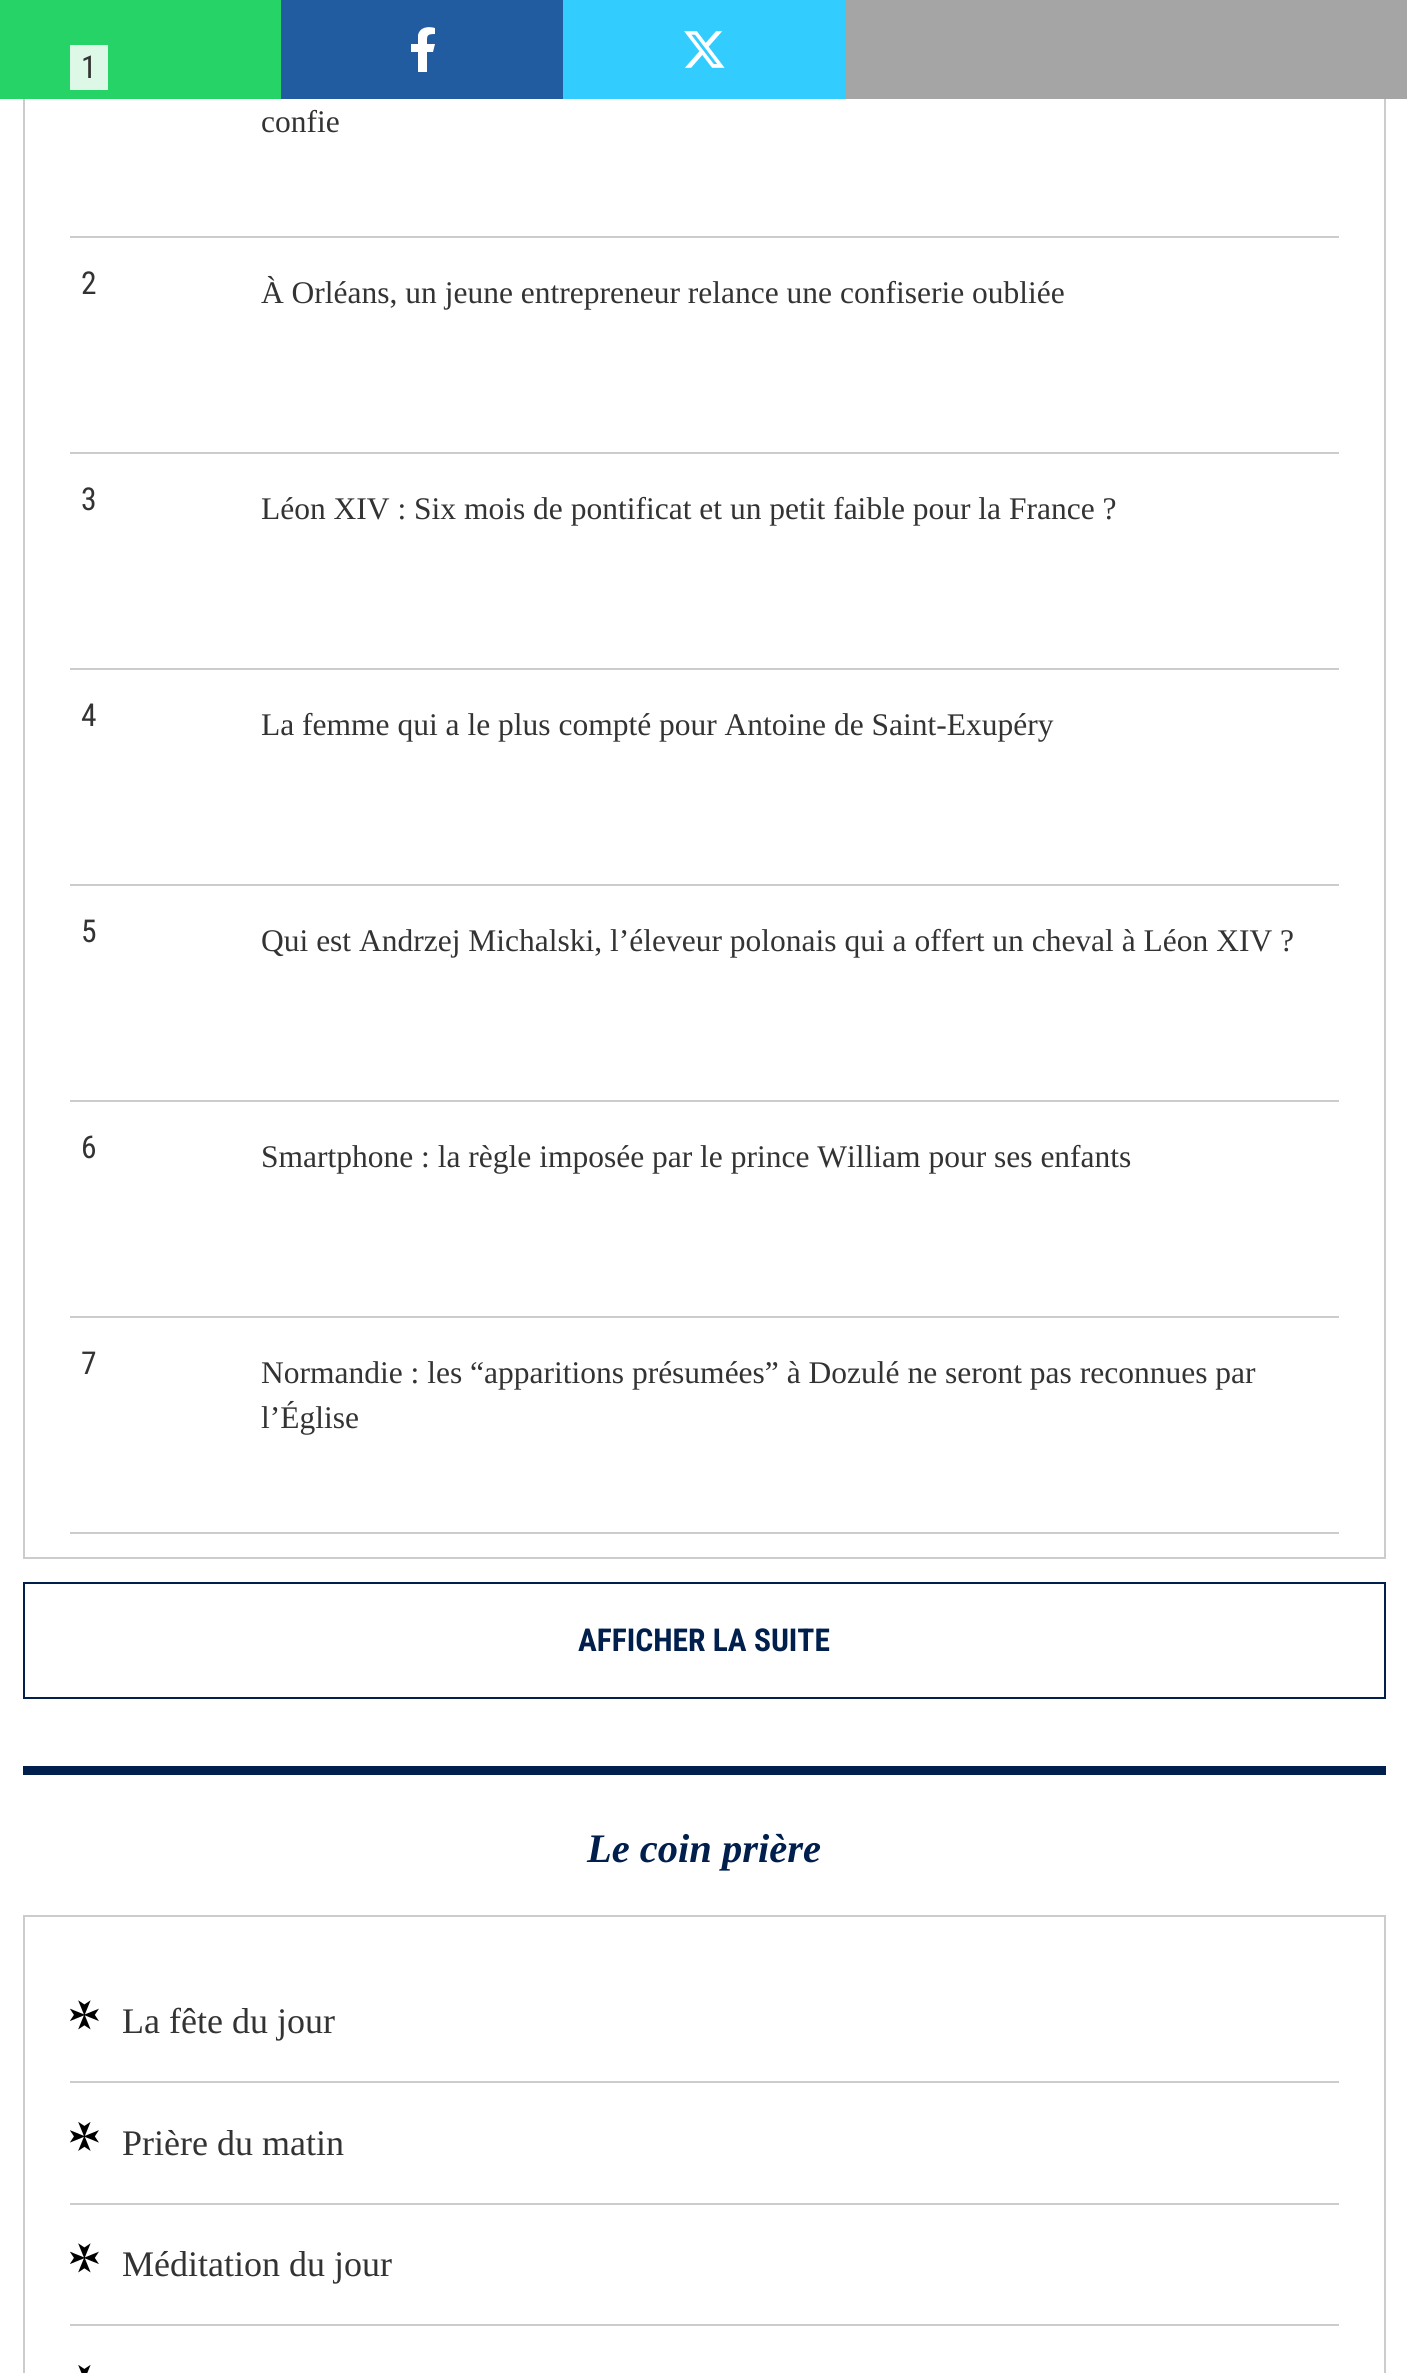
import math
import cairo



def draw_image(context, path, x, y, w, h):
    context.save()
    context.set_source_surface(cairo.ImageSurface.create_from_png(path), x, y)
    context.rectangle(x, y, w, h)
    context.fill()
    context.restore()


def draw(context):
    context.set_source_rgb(1, 1, 1)
    context.paint()
    context.rectangle(24, -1, 1361, 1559)
    context.set_source_rgb(204 / 255, 204 / 255, 204 / 255)
    context.stroke()
    context.set_source_rgb(37 / 255, 211 / 255, 102 / 255)
    context.rectangle(0, 0, 281, 99)
    context.fill()
    context.set_source_rgb(34 / 255, 92 / 255, 160 / 255)
    context.rectangle(281, 0, 282, 99)
    context.fill()
    context.set_source_rgb(1, 1, 1)
    context.new_path()
    context.move_to(433, 52)
    context.line_to(435, 44)
    context.line_to(427, 44)
    context.curve_to(427, 36, 426, 34, 435, 34)
    context.line_to(435, 28)
    context.curve_to(428, 26, 420, 27, 418, 35)
    context.line_to(418, 44)
    context.line_to(411, 44)
    context.line_to(411, 52)
    context.line_to(418, 52)
    context.line_to(418, 72)
    context.line_to(427, 72)
    context.line_to(427, 52)
    context.close_path()
    context.fill()
    context.set_source_rgb(51 / 255, 204 / 255, 1)
    context.rectangle(563, 0, 283, 99)
    context.fill()
    draw_image(context, "images/1.png", 684, 31, 41, 37)
    context.set_source_rgb(165 / 255, 165 / 255, 165 / 255)
    context.rectangle(846, 0, 561, 99)
    context.fill()
    context.set_source_rgb(204 / 255, 204 / 255, 204 / 255)
    context.rectangle(70, 236, 1269, 2)
    context.fill()
    context.set_source_rgb(222 / 255, 248 / 255, 232 / 255)
    context.rectangle(70, 45, 38, 45)
    context.fill()
    context.set_source_rgb(204 / 255, 204 / 255, 204 / 255)
    context.rectangle(70, 452, 1269, 2)
    context.fill()
    context.rectangle(70, 668, 1269, 2)
    context.fill()
    context.rectangle(70, 884, 1269, 2)
    context.fill()
    context.rectangle(70, 1100, 1269, 2)
    context.fill()
    context.rectangle(70, 1316, 1269, 2)
    context.fill()
    context.rectangle(70, 1532, 1269, 2)
    context.fill()
    context.rectangle(24, 1583, 1361, 115)
    context.set_source_rgb(0, 31 / 255, 77 / 255)
    context.stroke()
    context.rectangle(23, 1766, 1363, 9)
    context.fill()
    context.rectangle(24, 1916, 1361, 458)
    context.set_source_rgb(204 / 255, 204 / 255, 204 / 255)
    context.stroke()
    draw_image(context, "images/2.png", 70, 2000, 29, 30)
    context.rectangle(70, 2081, 1269, 2)
    context.fill()
    draw_image(context, "images/3.png", 70, 2122, 29, 29)
    context.rectangle(70, 2203, 1269, 2)
    context.fill()
    draw_image(context, "images/2.png", 70, 2243, 29, 30)
    context.rectangle(70, 2324, 1269, 2)
    context.fill()
    draw_image(context, "images/4.png", 78, 2365, 13, 8)
    context.select_font_face("Roboto Condensed")
    context.set_font_size(31.5)
    context.set_source_rgb(51 / 255, 51 / 255, 51 / 255)
    context.move_to(81, 78)
    context.show_text("1")
    context.select_font_face("Liberation Serif")
    context.move_to(261, 132)
    context.show_text("confie")
    context.select_font_face("Roboto Condensed")
    context.move_to(81, 294)
    context.show_text("2")
    context.select_font_face("Liberation Serif")
    context.move_to(261, 303)
    context.show_text("À Orléans, un jeune entrepreneur relance une confiserie oubliée")
    context.select_font_face("Roboto Condensed")
    context.move_to(81, 510)
    context.show_text("3")
    context.select_font_face("Liberation Serif")
    context.move_to(261, 519)
    context.show_text("Léon XIV : Six mois de pontificat et un petit faible pour la France ?")
    context.select_font_face("Roboto Condensed")
    context.move_to(81, 726)
    context.show_text("4")
    context.select_font_face("Liberation Serif")
    context.move_to(261, 735)
    context.show_text("La femme qui a le plus compté pour Antoine de Saint-Exupéry")
    context.select_font_face("Roboto Condensed")
    context.move_to(81, 942)
    context.show_text("5")
    context.select_font_face("Liberation Serif")
    context.move_to(261, 951)
    context.show_text("Qui est Andrzej Michalski, l’éleveur polonais qui a offert un cheval à Léon XIV ?")
    context.select_font_face("Roboto Condensed")
    context.move_to(81, 1158)
    context.show_text("6")
    context.select_font_face("Liberation Serif")
    context.move_to(261, 1167)
    context.show_text("Smartphone : la règle imposée par le prince William pour ses enfants")
    context.select_font_face("Roboto Condensed")
    context.move_to(81, 1374)
    context.show_text("7")
    context.select_font_face("Liberation Serif")
    context.move_to(261, 1383)
    context.show_text("Normandie : les “apparitions présumées” à Dozulé ne seront pas reconnues par")
    context.move_to(261, 1428)
    context.show_text("l’Église")
    context.select_font_face("Roboto Condensed", cairo.FontSlant.NORMAL, cairo.FontWeight.BOLD)
    context.set_source_rgb(0, 31 / 255, 77 / 255)
    context.move_to(578, 1651)
    context.show_text("AFFICHER LA SUITE")
    context.select_font_face("Liberation Serif", cairo.FontSlant.ITALIC, cairo.FontWeight.BOLD)
    context.set_font_size(40.5)
    context.move_to(587, 1862)
    context.show_text("Le coin prière")
    context.select_font_face("Liberation Serif")
    context.set_font_size(36)
    context.set_source_rgb(51 / 255, 51 / 255, 51 / 255)
    context.move_to(122, 2033)
    context.show_text("La fête du jour")
    context.move_to(122, 2155)
    context.show_text("Prière du matin")
    context.move_to(122, 2276)
    context.show_text("Méditation du jour")


surface = cairo.ImageSurface(cairo.Format.RGB24, 1407, 2373)
context = cairo.Context(surface)
options = cairo.FontOptions()
options.set_hint_metrics(cairo.HintMetrics.OFF)
options.set_hint_style(cairo.HintStyle.NONE)
context.set_font_options(options)
context.set_miter_limit(4)
draw(context)
surface.write_to_png("out.png")
